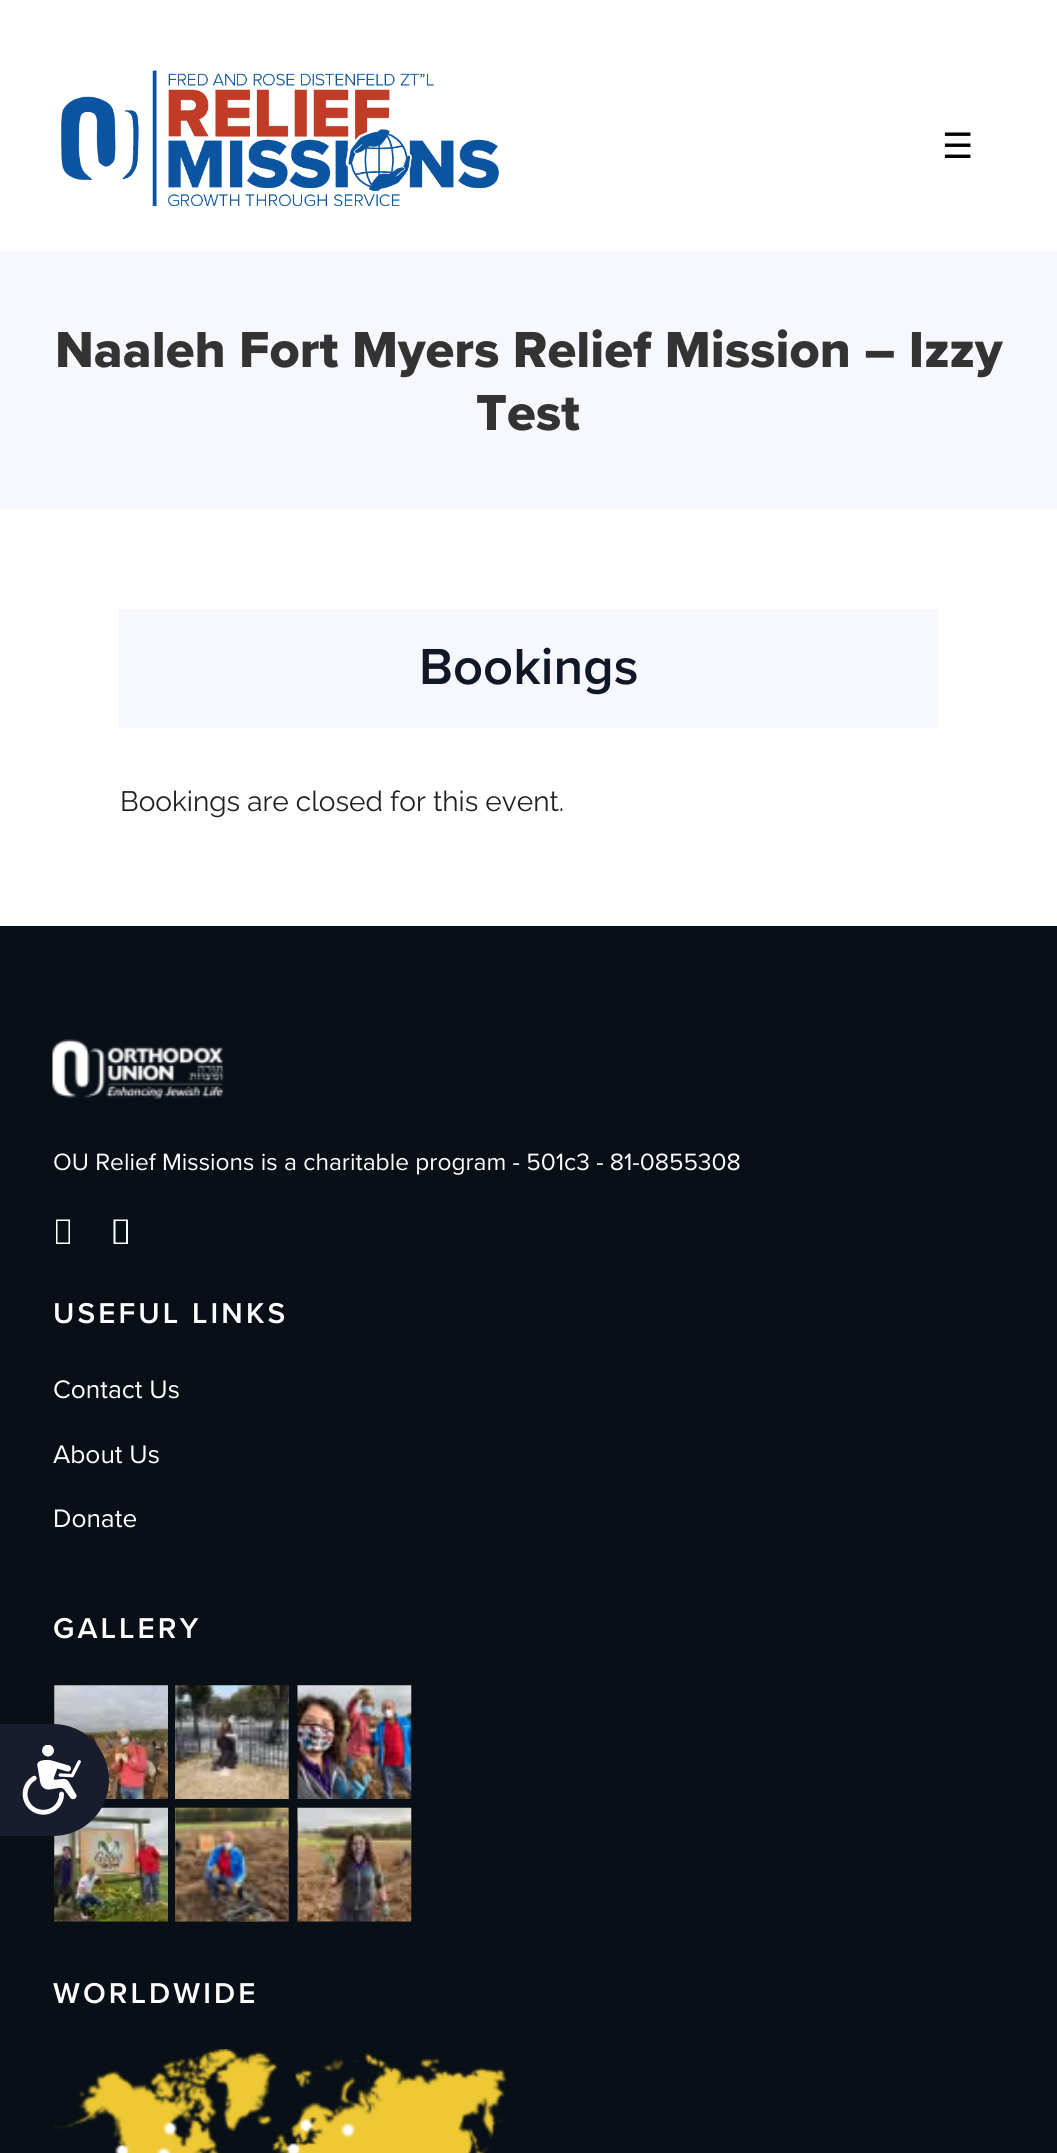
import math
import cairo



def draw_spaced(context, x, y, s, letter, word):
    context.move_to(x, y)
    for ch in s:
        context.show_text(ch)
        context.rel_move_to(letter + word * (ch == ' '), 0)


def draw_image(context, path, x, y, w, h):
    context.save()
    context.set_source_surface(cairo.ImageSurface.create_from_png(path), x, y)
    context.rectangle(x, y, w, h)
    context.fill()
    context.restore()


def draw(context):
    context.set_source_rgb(1, 1, 1)
    context.paint()
    draw_image(context, "images/1.png", 61, 70, 438, 136)
    context.set_source_rgb(247 / 255, 248 / 255, 254 / 255)
    context.rectangle(0, 250, 1057, 259)
    context.fill()
    context.rectangle(119, 609, 819, 119)
    context.fill()
    context.set_source_rgb(8 / 255, 15 / 255, 22 / 255)
    context.rectangle(0, 926, 1057, 1227)
    context.fill()
    draw_image(context, "images/2.png", 52, 1039, 172, 60)
    context.set_source_rgb(1, 1, 1)
    context.new_path()
    context.move_to(56, 1244)
    context.line_to(56, 1219.5)
    context.line_to(70, 1219.5)
    context.line_to(70, 1244)
    context.close_path()
    context.move_to(57.5, 1242.5)
    context.line_to(68.5, 1242.5)
    context.line_to(68.5, 1221)
    context.line_to(57.5, 1221)
    context.close_path()
    context.fill()
    context.new_path()
    context.move_to(113.5, 1244)
    context.line_to(113.5, 1219.5)
    context.line_to(128, 1219.5)
    context.line_to(128, 1244)
    context.close_path()
    context.move_to(115.5, 1242.5)
    context.line_to(126, 1242.5)
    context.line_to(126, 1221)
    context.line_to(115.5, 1221)
    context.close_path()
    context.fill()
    draw_image(context, "images/3.png", 54, 1685, 114, 114)
    draw_image(context, "images/4.png", 175, 1685, 114, 114)
    draw_image(context, "images/5.png", 297, 1685, 115, 114)
    draw_image(context, "images/6.png", 54, 1807, 114, 115)
    draw_image(context, "images/7.png", 175, 1807, 114, 115)
    draw_image(context, "images/8.png", 297, 1807, 115, 115)
    draw_image(context, "images/9.png", 53, 2049, 454, 104)
    context.set_source_rgb(23 / 255, 29 / 255, 45 / 255)
    context.new_path()
    context.move_to(0, 1724)
    context.line_to(53, 1724)
    context.curve_to(84, 1724, 109, 1749, 109, 1780)
    context.curve_to(109, 1811, 84, 1836, 53, 1836)
    context.line_to(0, 1836)
    context.close_path()
    context.fill()
    draw_image(context, "images/10.png", 22, 1745, 59, 70)
    context.select_font_face("DejaVu Sans")
    context.set_font_size(35)
    context.set_source_rgb(0, 0, 0)
    context.move_to(942, 158)
    context.show_text("☰")
    context.select_font_face("Proxima Nova ExtraBold")
    context.set_font_size(52.5)
    context.set_source_rgb(51 / 255, 51 / 255, 51 / 255)
    context.move_to(55, 367)
    context.show_text("Naaleh Fort Myers Relief Mission – Izzy")
    context.move_to(476, 430)
    context.show_text("Test")
    context.select_font_face("Proxima Nova SemiBold")
    context.set_source_rgb(16 / 255, 24 / 255, 40 / 255)
    context.move_to(419, 684)
    context.show_text("Bookings")
    context.select_font_face("Raleway")
    context.set_font_size(28)
    context.set_source_rgb(33 / 255, 33 / 255, 33 / 255)
    context.move_to(120, 811)
    context.show_text("Bookings are closed for this event.")
    context.select_font_face("Proxima Nova")
    context.set_font_size(24.5)
    context.set_source_rgb(1, 1, 1)
    context.move_to(53, 1170)
    context.show_text("OU Relief Missions is a charitable program - 501c3 - 81-0855308")
    context.select_font_face("Proxima Nova SemiBold")
    context.set_font_size(29.75)
    draw_spaced(context, 53, 1323, "USEFUL LINKS", 3.1, 0)
    context.select_font_face("Proxima Nova")
    context.set_font_size(26.25)
    context.move_to(53, 1398)
    context.show_text("Contact Us")
    context.move_to(53, 1463)
    context.show_text("About Us")
    context.move_to(53, 1527)
    context.show_text("Donate")
    context.select_font_face("Proxima Nova SemiBold")
    context.set_font_size(29.75)
    draw_spaced(context, 53, 1638, "GALLERY", 3.1, 0)
    draw_spaced(context, 53, 2003, "WORLDWIDE", 3.1, 0)


surface = cairo.ImageSurface(cairo.Format.RGB24, 1057, 2153)
context = cairo.Context(surface)
options = cairo.FontOptions()
options.set_hint_metrics(cairo.HintMetrics.OFF)
options.set_hint_style(cairo.HintStyle.NONE)
context.set_font_options(options)
context.set_miter_limit(4)
draw(context)
surface.write_to_png("out.png")
